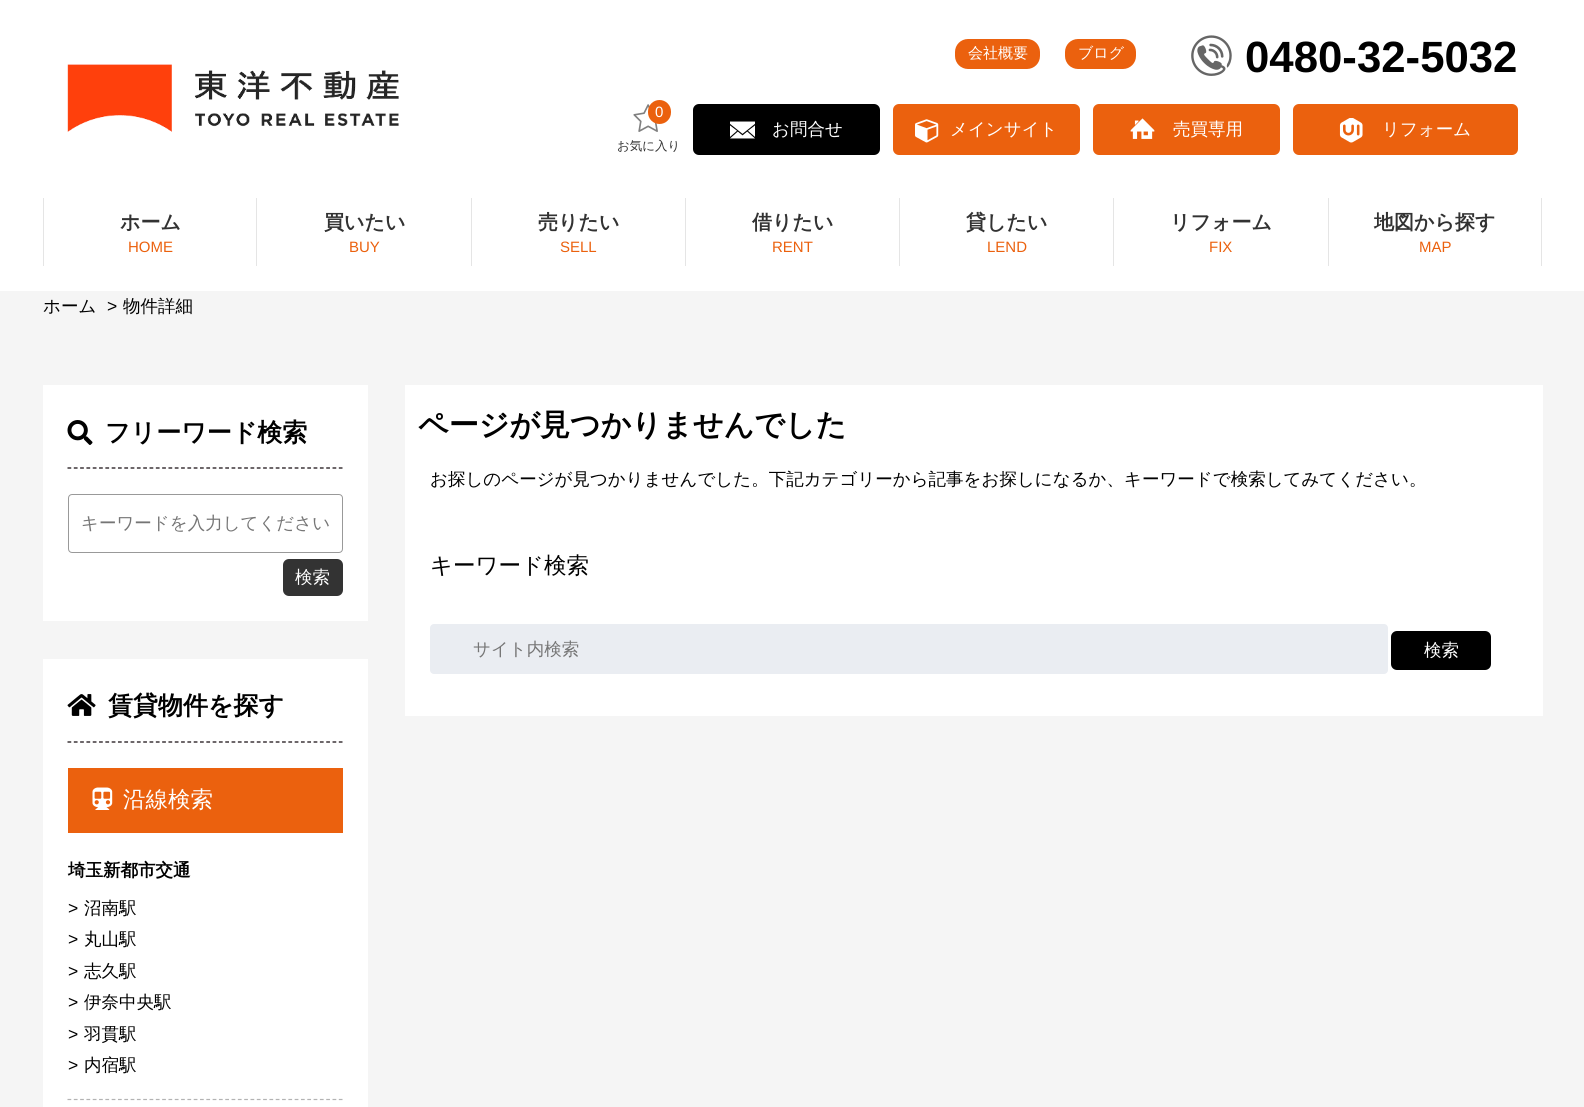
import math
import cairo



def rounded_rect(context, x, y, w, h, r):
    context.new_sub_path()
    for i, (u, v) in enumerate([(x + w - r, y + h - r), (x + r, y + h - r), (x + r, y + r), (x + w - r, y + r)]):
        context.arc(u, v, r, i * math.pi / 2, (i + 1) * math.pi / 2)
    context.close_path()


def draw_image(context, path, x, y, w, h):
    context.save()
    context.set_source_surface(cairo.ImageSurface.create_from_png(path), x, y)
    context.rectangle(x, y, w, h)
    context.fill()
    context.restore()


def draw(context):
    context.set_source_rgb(1, 1, 1)
    context.paint()
    draw_image(context, "images/1.png", 67, 64, 332, 68)
    context.set_source_rgb(235 / 255, 97 / 255, 14 / 255)
    rounded_rect(context, 955, 39, 85, 30, 13)
    context.fill()
    rounded_rect(context, 1065, 39, 71, 30, 13)
    context.fill()
    draw_image(context, "images/2.png", 1191, 35, 41, 41)
    draw_image(context, "images/3.png", 633, 104, 25, 28)
    rounded_rect(context, 648, 100, 23, 24, 11.5)
    context.fill()
    context.set_source_rgb(0, 0, 0)
    rounded_rect(context, 693, 104, 187, 51, 6)
    context.fill()
    draw_image(context, "images/4.png", 730, 121, 25, 18)
    context.set_source_rgb(235 / 255, 97 / 255, 14 / 255)
    rounded_rect(context, 893, 104, 187, 51, 6)
    context.fill()
    draw_image(context, "images/5.png", 915, 119, 24, 24)
    rounded_rect(context, 1093, 104, 187, 51, 6)
    context.fill()
    draw_image(context, "images/6.png", 1130, 118, 25, 21)
    rounded_rect(context, 1293, 104, 225, 51, 6)
    context.fill()
    draw_image(context, "images/7.png", 1339, 118, 24, 25)
    context.set_source_rgb(229 / 255, 229 / 255, 229 / 255)
    context.rectangle(1541, 198, 1, 68)
    context.fill()
    context.rectangle(43, 198, 1, 68)
    context.fill()
    context.rectangle(256, 198, 1, 68)
    context.fill()
    context.rectangle(471, 198, 1, 68)
    context.fill()
    context.rectangle(685, 198, 1, 68)
    context.fill()
    context.rectangle(899, 198, 1, 68)
    context.fill()
    context.rectangle(1113, 198, 1, 68)
    context.fill()
    context.rectangle(1328, 198, 1, 68)
    context.fill()
    context.set_source_rgb(245 / 255, 245 / 255, 245 / 255)
    context.rectangle(0, 291, 1584, 816)
    context.fill()
    context.set_source_rgb(1, 1, 1)
    context.rectangle(43, 385, 325, 236)
    context.fill()
    context.new_path()
    context.move_to(67.5, 468)
    context.line_to(342.5, 468)
    context.set_source_rgb(14 / 255, 4 / 255, 9 / 255)
    context.set_line_width(1.2)
    context.set_dash([3.75, 2.56])
    context.stroke()
    draw_image(context, "images/8.png", 67, 420, 26, 25)
    rounded_rect(context, 68.5, 494.5, 274, 58, 3.5)
    context.set_source_rgb(153 / 255, 153 / 255, 153 / 255)
    context.set_line_width(1)
    context.set_dash([])
    context.stroke()
    context.set_source_rgb(51 / 255, 51 / 255, 51 / 255)
    rounded_rect(context, 283, 559, 60, 37, 6)
    context.fill()
    context.set_source_rgb(1, 1, 1)
    context.rectangle(43, 659, 325, 448)
    context.fill()
    context.new_path()
    context.move_to(67.5, 742)
    context.line_to(342.5, 742)
    context.set_source_rgb(14 / 255, 4 / 255, 9 / 255)
    context.set_line_width(1.2)
    context.set_dash([3.75, 2.56])
    context.stroke()
    draw_image(context, "images/9.png", 67, 694, 29, 22)
    context.set_source_rgb(235 / 255, 97 / 255, 14 / 255)
    context.rectangle(68, 768, 275, 65)
    context.fill()
    draw_image(context, "images/10.png", 92, 787, 21, 23)
    context.new_path()
    context.move_to(67.5, 1099.5)
    context.line_to(342.5, 1099.5)
    context.set_source_rgb(179 / 255, 179 / 255, 179 / 255)
    context.stroke()
    context.set_source_rgb(1, 1, 1)
    context.rectangle(405, 385, 1138, 331)
    context.fill()
    context.set_source_rgb(234 / 255, 237 / 255, 242 / 255)
    rounded_rect(context, 430, 624, 958, 50, 4)
    context.fill()
    context.set_source_rgb(0, 0, 0)
    rounded_rect(context, 1391, 631, 100, 39, 6)
    context.fill()
    context.select_font_face("WenQuanYi Zen Hei Medium")
    context.set_font_size(15)
    context.set_source_rgb(1, 1, 1)
    context.move_to(968, 58)
    context.show_text("会社概要")
    context.move_to(1078, 58)
    context.show_text("ブログ")
    context.select_font_face("Liberation Sans", cairo.FontSlant.NORMAL, cairo.FontWeight.BOLD)
    context.set_font_size(43.75)
    context.set_source_rgb(0, 0, 0)
    context.move_to(1245, 72)
    context.show_text("0480-32-5032")
    context.select_font_face("Liberation Sans")
    context.set_font_size(15)
    context.set_source_rgb(1, 1, 1)
    context.move_to(655, 117)
    context.show_text("0")
    context.select_font_face("WenQuanYi Zen Hei Medium")
    context.set_font_size(12.5)
    context.set_source_rgb(50 / 255, 50 / 255, 50 / 255)
    context.move_to(617, 150)
    context.show_text("お気に入り")
    context.set_font_size(17.5)
    context.set_source_rgb(1, 1, 1)
    context.move_to(772, 135)
    context.show_text("お問合せ")
    context.move_to(950, 135)
    context.show_text("メインサイト")
    context.move_to(1173, 135)
    context.show_text("売買専用")
    context.move_to(1382, 135)
    context.show_text("リフォーム")
    context.select_font_face("WenQuanYi Zen Hei", cairo.FontSlant.NORMAL, cairo.FontWeight.BOLD)
    context.set_font_size(20)
    context.set_source_rgb(50 / 255, 50 / 255, 50 / 255)
    context.move_to(120, 229)
    context.show_text("ホーム")
    context.select_font_face("Liberation Sans")
    context.set_font_size(15)
    context.set_source_rgb(235 / 255, 97 / 255, 14 / 255)
    context.move_to(128, 252)
    context.show_text("HOME")
    context.select_font_face("WenQuanYi Zen Hei", cairo.FontSlant.NORMAL, cairo.FontWeight.BOLD)
    context.set_font_size(20)
    context.set_source_rgb(50 / 255, 50 / 255, 50 / 255)
    context.move_to(324, 229)
    context.show_text("買いたい")
    context.select_font_face("Liberation Sans")
    context.set_font_size(15)
    context.set_source_rgb(235 / 255, 97 / 255, 14 / 255)
    context.move_to(349, 252)
    context.show_text("BUY")
    context.select_font_face("WenQuanYi Zen Hei", cairo.FontSlant.NORMAL, cairo.FontWeight.BOLD)
    context.set_font_size(20)
    context.set_source_rgb(50 / 255, 50 / 255, 50 / 255)
    context.move_to(538, 229)
    context.show_text("売りたい")
    context.select_font_face("Liberation Sans")
    context.set_font_size(15)
    context.set_source_rgb(235 / 255, 97 / 255, 14 / 255)
    context.move_to(560, 252)
    context.show_text("SELL")
    context.select_font_face("WenQuanYi Zen Hei", cairo.FontSlant.NORMAL, cairo.FontWeight.BOLD)
    context.set_font_size(20)
    context.set_source_rgb(50 / 255, 50 / 255, 50 / 255)
    context.move_to(752, 229)
    context.show_text("借りたい")
    context.select_font_face("Liberation Sans")
    context.set_font_size(15)
    context.set_source_rgb(235 / 255, 97 / 255, 14 / 255)
    context.move_to(772, 252)
    context.show_text("RENT")
    context.select_font_face("WenQuanYi Zen Hei", cairo.FontSlant.NORMAL, cairo.FontWeight.BOLD)
    context.set_font_size(20)
    context.set_source_rgb(50 / 255, 50 / 255, 50 / 255)
    context.move_to(966, 229)
    context.show_text("貸したい")
    context.select_font_face("Liberation Sans")
    context.set_font_size(15)
    context.set_source_rgb(235 / 255, 97 / 255, 14 / 255)
    context.move_to(987, 252)
    context.show_text("LEND")
    context.select_font_face("WenQuanYi Zen Hei", cairo.FontSlant.NORMAL, cairo.FontWeight.BOLD)
    context.set_font_size(20)
    context.set_source_rgb(50 / 255, 50 / 255, 50 / 255)
    context.move_to(1170, 229)
    context.show_text("リフォーム")
    context.select_font_face("Liberation Sans")
    context.set_font_size(15)
    context.set_source_rgb(235 / 255, 97 / 255, 14 / 255)
    context.move_to(1209, 252)
    context.show_text("FIX")
    context.select_font_face("WenQuanYi Zen Hei", cairo.FontSlant.NORMAL, cairo.FontWeight.BOLD)
    context.set_font_size(20)
    context.set_source_rgb(50 / 255, 50 / 255, 50 / 255)
    context.move_to(1374, 229)
    context.show_text("地図から探す")
    context.select_font_face("Liberation Sans")
    context.set_font_size(15)
    context.set_source_rgb(235 / 255, 97 / 255, 14 / 255)
    context.move_to(1419, 252)
    context.show_text("MAP")
    context.select_font_face("WenQuanYi Zen Hei Medium")
    context.set_font_size(17.5)
    context.set_source_rgb(0, 0, 0)
    context.move_to(43, 312)
    context.show_text("ホーム")
    context.select_font_face("Liberation Sans")
    context.move_to(107, 312)
    context.show_text(">")
    context.select_font_face("WenQuanYi Zen Hei Medium")
    context.move_to(123, 312)
    context.show_text("物件詳細")
    context.select_font_face("WenQuanYi Zen Hei", cairo.FontSlant.NORMAL, cairo.FontWeight.BOLD)
    context.set_font_size(25)
    context.move_to(105, 441)
    context.show_text("フリーワード検索")
    context.select_font_face("WenQuanYi Zen Hei Medium")
    context.set_font_size(17.5)
    context.set_source_rgb(117 / 255, 117 / 255, 117 / 255)
    context.move_to(81, 529)
    context.show_text("キーワードを入力してください")
    context.set_source_rgb(1, 1, 1)
    context.move_to(295, 583)
    context.show_text("検索")
    context.select_font_face("WenQuanYi Zen Hei", cairo.FontSlant.NORMAL, cairo.FontWeight.BOLD)
    context.set_font_size(25)
    context.set_source_rgb(0, 0, 0)
    context.move_to(108, 714)
    context.show_text("賃貸物件を探す")
    context.select_font_face("WenQuanYi Zen Hei Medium")
    context.set_font_size(22.5)
    context.set_source_rgb(1, 1, 1)
    context.move_to(123, 807)
    context.show_text("沿線検索")
    context.select_font_face("WenQuanYi Zen Hei", cairo.FontSlant.NORMAL, cairo.FontWeight.BOLD)
    context.set_font_size(17.5)
    context.set_source_rgb(0, 0, 0)
    context.move_to(68, 876)
    context.show_text("埼玉新都市交通")
    context.select_font_face("Liberation Sans")
    context.move_to(68, 914)
    context.show_text(">")
    context.select_font_face("WenQuanYi Zen Hei Medium")
    context.move_to(84, 914)
    context.show_text("沼南駅")
    context.select_font_face("Liberation Sans")
    context.move_to(68, 945)
    context.show_text(">")
    context.select_font_face("WenQuanYi Zen Hei Medium")
    context.move_to(84, 945)
    context.show_text("丸山駅")
    context.select_font_face("Liberation Sans")
    context.move_to(68, 977)
    context.show_text(">")
    context.select_font_face("WenQuanYi Zen Hei Medium")
    context.move_to(84, 977)
    context.show_text("志久駅")
    context.select_font_face("Liberation Sans")
    context.move_to(68, 1008)
    context.show_text(">")
    context.select_font_face("WenQuanYi Zen Hei Medium")
    context.move_to(84, 1008)
    context.show_text("伊奈中央駅")
    context.select_font_face("Liberation Sans")
    context.move_to(68, 1040)
    context.show_text(">")
    context.select_font_face("WenQuanYi Zen Hei Medium")
    context.move_to(84, 1040)
    context.show_text("羽貫駅")
    context.select_font_face("Liberation Sans")
    context.move_to(68, 1071)
    context.show_text(">")
    context.select_font_face("WenQuanYi Zen Hei Medium")
    context.move_to(84, 1071)
    context.show_text("内宿駅")
    context.select_font_face("WenQuanYi Zen Hei", cairo.FontSlant.NORMAL, cairo.FontWeight.BOLD)
    context.set_font_size(30)
    context.move_to(418, 435)
    context.show_text("ページが見つかりませんでした")
    context.select_font_face("WenQuanYi Zen Hei Medium")
    context.set_font_size(17.5)
    context.move_to(430, 485)
    context.show_text("お探しのページが見つかりませんでした。下記カテゴリーから記事をお探しになるか、キーワードで検索してみてください。")
    context.set_font_size(22.5)
    context.move_to(430, 573)
    context.show_text("キーワード検索")
    context.set_font_size(17.5)
    context.set_source_rgb(117 / 255, 117 / 255, 117 / 255)
    context.move_to(473, 655)
    context.show_text("サイト内検索")
    context.set_source_rgb(1, 1, 1)
    context.move_to(1424, 656)
    context.show_text("検索")


surface = cairo.ImageSurface(cairo.Format.RGB24, 1584, 1107)
context = cairo.Context(surface)
options = cairo.FontOptions()
options.set_hint_metrics(cairo.HintMetrics.OFF)
options.set_hint_style(cairo.HintStyle.NONE)
context.set_font_options(options)
context.set_miter_limit(4)
draw(context)
surface.write_to_png("out.png")
